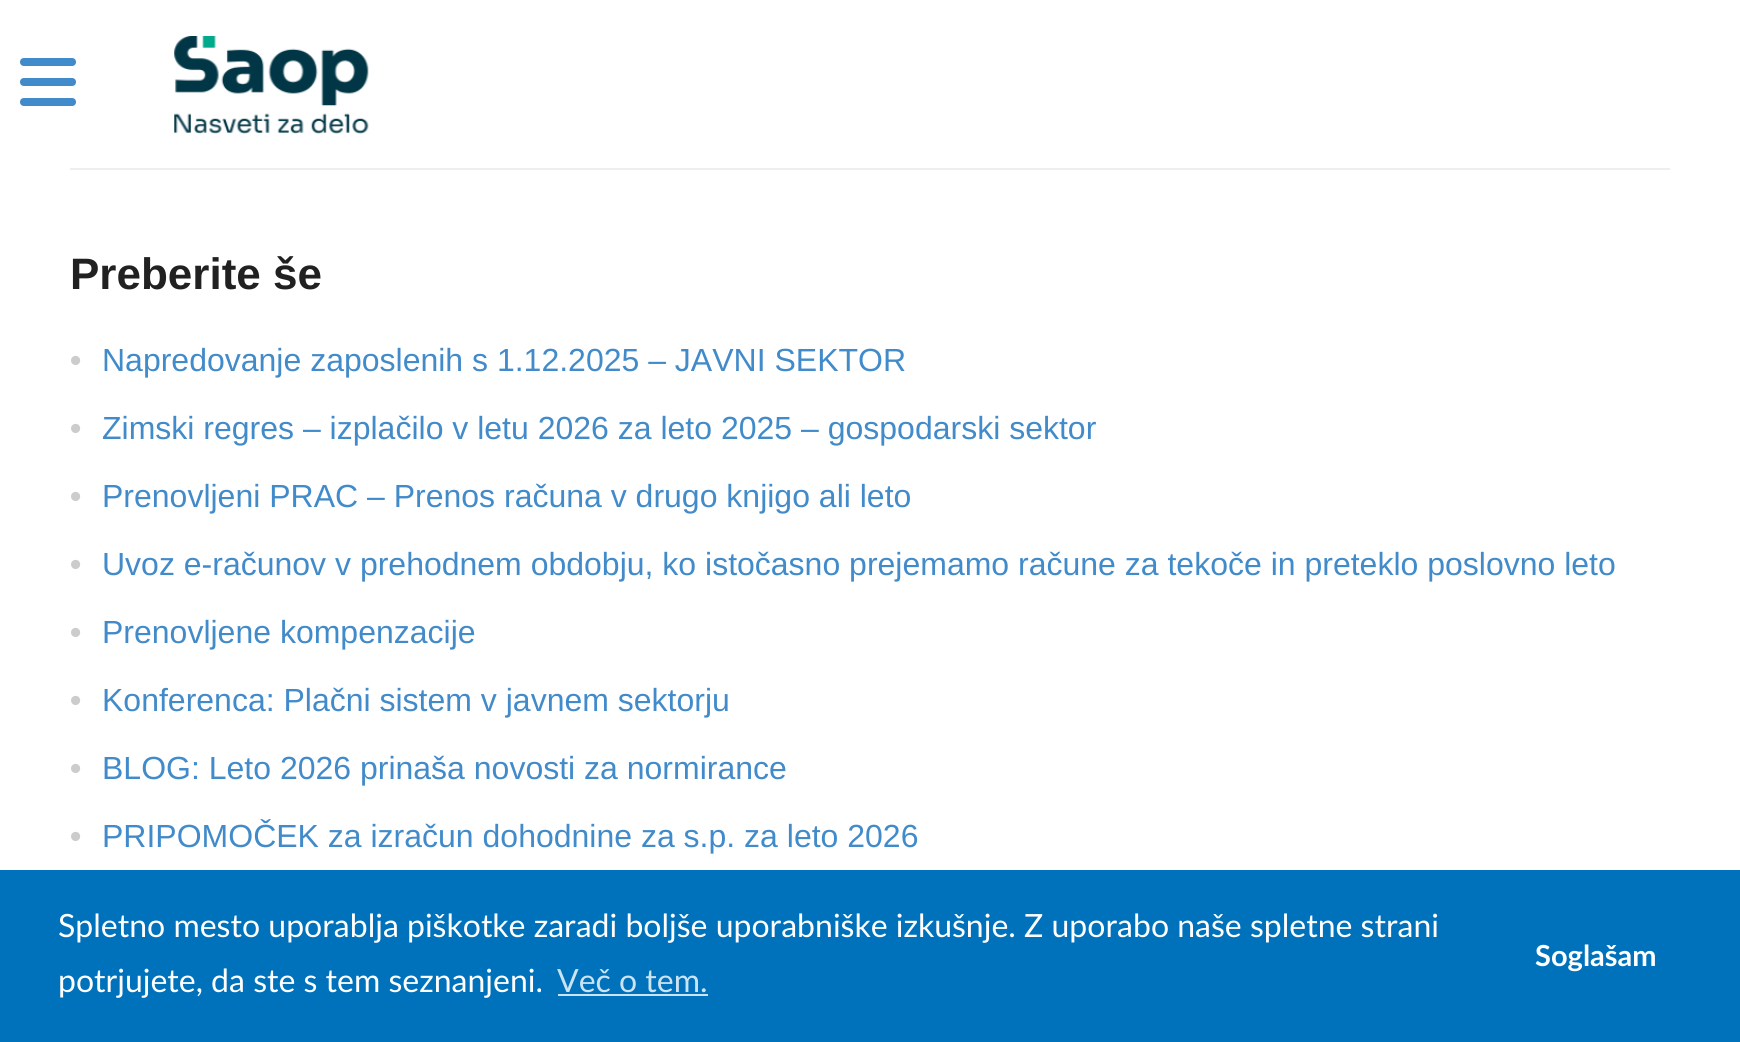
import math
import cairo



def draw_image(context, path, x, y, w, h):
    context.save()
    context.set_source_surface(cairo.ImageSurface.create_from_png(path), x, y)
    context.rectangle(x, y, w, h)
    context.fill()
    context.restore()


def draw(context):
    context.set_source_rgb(1, 1, 1)
    context.paint()
    draw_image(context, "images/1.png", 20, 58, 56, 48)
    draw_image(context, "images/2.png", 174, 36, 195, 98)
    context.set_source_rgb(238 / 255, 238 / 255, 238 / 255)
    context.rectangle(70, 168, 1600, 2)
    context.fill()
    context.set_source_rgb(0, 114 / 255, 188 / 255)
    context.rectangle(0, 870, 1740, 172)
    context.fill()
    context.set_source_rgb(204 / 255, 227 / 255, 242 / 255)
    context.rectangle(558, 994, 150, 2)
    context.fill()
    context.select_font_face("Liberation Sans", cairo.FontSlant.NORMAL, cairo.FontWeight.BOLD)
    context.set_font_size(44)
    context.set_source_rgb(33 / 255, 33 / 255, 33 / 255)
    context.move_to(70, 289)
    context.show_text("Preberite še")
    context.set_font_size(32)
    context.set_source_rgb(204 / 255, 204 / 255, 204 / 255)
    context.move_to(70, 371)
    context.show_text("•")
    context.select_font_face("Liberation Sans")
    context.set_source_rgb(66 / 255, 139 / 255, 202 / 255)
    context.move_to(102, 371)
    context.show_text("Napredovanje zaposlenih s 1.12.2025 – JAVNI SEKTOR")
    context.select_font_face("Liberation Sans", cairo.FontSlant.NORMAL, cairo.FontWeight.BOLD)
    context.set_source_rgb(204 / 255, 204 / 255, 204 / 255)
    context.move_to(70, 439)
    context.show_text("•")
    context.select_font_face("Liberation Sans")
    context.set_source_rgb(66 / 255, 139 / 255, 202 / 255)
    context.move_to(102, 439)
    context.show_text("Zimski regres – izplačilo v letu 2026 za leto 2025 – gospodarski sektor")
    context.select_font_face("Liberation Sans", cairo.FontSlant.NORMAL, cairo.FontWeight.BOLD)
    context.set_source_rgb(204 / 255, 204 / 255, 204 / 255)
    context.move_to(70, 507)
    context.show_text("•")
    context.select_font_face("Liberation Sans")
    context.set_source_rgb(66 / 255, 139 / 255, 202 / 255)
    context.move_to(102, 507)
    context.show_text("Prenovljeni PRAC – Prenos računa v drugo knjigo ali leto")
    context.select_font_face("Liberation Sans", cairo.FontSlant.NORMAL, cairo.FontWeight.BOLD)
    context.set_source_rgb(204 / 255, 204 / 255, 204 / 255)
    context.move_to(70, 575)
    context.show_text("•")
    context.select_font_face("Liberation Sans")
    context.set_source_rgb(66 / 255, 139 / 255, 202 / 255)
    context.move_to(102, 575)
    context.show_text("Uvoz e-računov v prehodnem obdobju, ko istočasno prejemamo račune za tekoče in preteklo poslovno leto")
    context.select_font_face("Liberation Sans", cairo.FontSlant.NORMAL, cairo.FontWeight.BOLD)
    context.set_source_rgb(204 / 255, 204 / 255, 204 / 255)
    context.move_to(70, 643)
    context.show_text("•")
    context.select_font_face("Liberation Sans")
    context.set_source_rgb(66 / 255, 139 / 255, 202 / 255)
    context.move_to(102, 643)
    context.show_text("Prenovljene kompenzacije")
    context.select_font_face("Liberation Sans", cairo.FontSlant.NORMAL, cairo.FontWeight.BOLD)
    context.set_source_rgb(204 / 255, 204 / 255, 204 / 255)
    context.move_to(70, 711)
    context.show_text("•")
    context.select_font_face("Liberation Sans")
    context.set_source_rgb(66 / 255, 139 / 255, 202 / 255)
    context.move_to(102, 711)
    context.show_text("Konferenca: Plačni sistem v javnem sektorju")
    context.select_font_face("Liberation Sans", cairo.FontSlant.NORMAL, cairo.FontWeight.BOLD)
    context.set_source_rgb(204 / 255, 204 / 255, 204 / 255)
    context.move_to(70, 779)
    context.show_text("•")
    context.select_font_face("Liberation Sans")
    context.set_source_rgb(66 / 255, 139 / 255, 202 / 255)
    context.move_to(102, 779)
    context.show_text("BLOG: Leto 2026 prinaša novosti za normirance")
    context.select_font_face("Liberation Sans", cairo.FontSlant.NORMAL, cairo.FontWeight.BOLD)
    context.set_source_rgb(204 / 255, 204 / 255, 204 / 255)
    context.move_to(70, 847)
    context.show_text("•")
    context.select_font_face("Liberation Sans")
    context.set_source_rgb(66 / 255, 139 / 255, 202 / 255)
    context.move_to(102, 847)
    context.show_text("PRIPOMOČEK za izračun dohodnine za s.p. za leto 2026")
    context.select_font_face("Lato")
    context.set_source_rgb(1, 1, 1)
    context.move_to(58, 937)
    context.show_text("Spletno mesto uporablja piškotke zaradi boljše uporabniške izkušnje. Z uporabo naše spletne strani")
    context.move_to(58, 992)
    context.show_text("potrjujete, da ste s tem seznanjeni.")
    context.set_source_rgb(204 / 255, 227 / 255, 242 / 255)
    context.move_to(557, 992)
    context.show_text("Več o tem.")
    context.select_font_face("Lato", cairo.FontSlant.NORMAL, cairo.FontWeight.BOLD)
    context.set_font_size(29)
    context.set_source_rgb(1, 1, 1)
    context.move_to(1535, 966)
    context.show_text("Soglašam")


surface = cairo.ImageSurface(cairo.Format.RGB24, 1740, 1042)
context = cairo.Context(surface)
options = cairo.FontOptions()
options.set_hint_metrics(cairo.HintMetrics.OFF)
options.set_hint_style(cairo.HintStyle.NONE)
context.set_font_options(options)
context.set_miter_limit(4)
draw(context)
surface.write_to_png("out.png")
